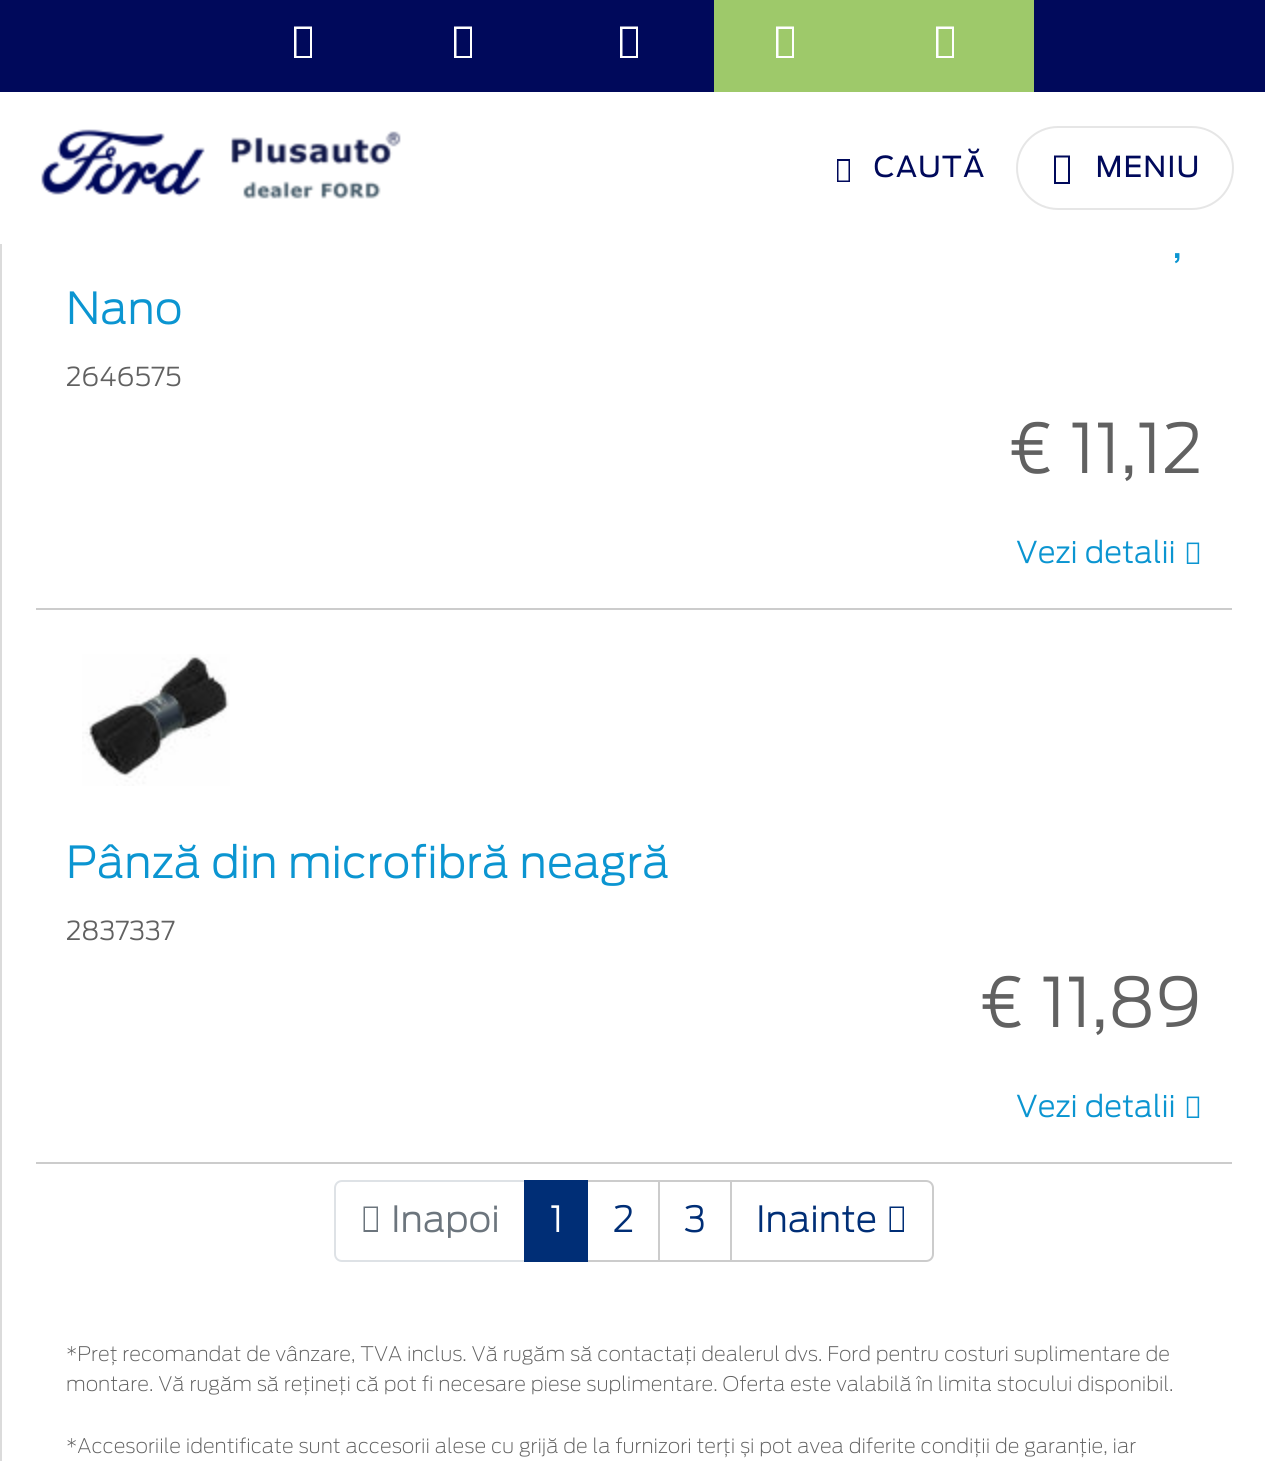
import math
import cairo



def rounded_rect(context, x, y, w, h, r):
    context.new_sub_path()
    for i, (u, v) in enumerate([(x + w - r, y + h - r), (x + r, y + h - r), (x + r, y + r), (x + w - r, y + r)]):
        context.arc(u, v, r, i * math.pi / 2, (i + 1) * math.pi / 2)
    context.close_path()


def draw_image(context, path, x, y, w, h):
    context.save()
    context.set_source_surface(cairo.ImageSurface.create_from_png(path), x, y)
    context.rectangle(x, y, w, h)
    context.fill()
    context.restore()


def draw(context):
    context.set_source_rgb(1, 1, 1)
    context.paint()
    context.set_source_rgb(0, 9 / 255, 91 / 255)
    context.rectangle(0, 0, 1265, 92)
    context.fill()
    context.set_source_rgb(1, 1, 1)
    context.new_path()
    context.move_to(294, 58)
    context.line_to(294, 26.5)
    context.line_to(312, 26.5)
    context.line_to(312, 58)
    context.close_path()
    context.move_to(296.5, 56)
    context.line_to(310, 56)
    context.line_to(310, 29)
    context.line_to(296.5, 29)
    context.close_path()
    context.fill()
    context.new_path()
    context.move_to(454, 58)
    context.line_to(454, 26.5)
    context.line_to(472, 26.5)
    context.line_to(472, 58)
    context.close_path()
    context.move_to(456.5, 56)
    context.line_to(470, 56)
    context.line_to(470, 29)
    context.line_to(456.5, 29)
    context.close_path()
    context.fill()
    context.new_path()
    context.move_to(620, 58)
    context.line_to(620, 26.5)
    context.line_to(638, 26.5)
    context.line_to(638, 58)
    context.close_path()
    context.move_to(622.5, 56)
    context.line_to(636, 56)
    context.line_to(636, 29)
    context.line_to(622.5, 29)
    context.close_path()
    context.fill()
    context.set_source_rgb(158 / 255, 201 / 255, 106 / 255)
    context.rectangle(714, 0, 320, 92)
    context.fill()
    context.set_source_rgb(1, 1, 1)
    context.new_path()
    context.move_to(776, 58)
    context.line_to(776, 26.5)
    context.line_to(794, 26.5)
    context.line_to(794, 58)
    context.close_path()
    context.move_to(778.5, 56)
    context.line_to(792, 56)
    context.line_to(792, 29)
    context.line_to(778.5, 29)
    context.close_path()
    context.fill()
    context.new_path()
    context.move_to(936, 58)
    context.line_to(936, 26.5)
    context.line_to(954, 26.5)
    context.line_to(954, 58)
    context.close_path()
    context.move_to(938.5, 56)
    context.line_to(952, 56)
    context.line_to(952, 29)
    context.line_to(938.5, 29)
    context.close_path()
    context.fill()
    draw_image(context, "images/1.png", 41, 129, 164, 68)
    draw_image(context, "images/2.png", 231, 131, 170, 68)
    context.set_source_rgb(0, 9 / 255, 91 / 255)
    context.new_path()
    context.move_to(837, 182)
    context.line_to(837, 159)
    context.line_to(850, 159)
    context.line_to(850, 182)
    context.close_path()
    context.move_to(838.5, 180.5)
    context.line_to(848.5, 180.5)
    context.line_to(848.5, 161)
    context.line_to(838.5, 161)
    context.close_path()
    context.fill()
    rounded_rect(context, 1017, 127, 216, 82, 41)
    context.set_source_rgb(230 / 255, 230 / 255, 230 / 255)
    context.stroke()
    context.set_source_rgb(0, 9 / 255, 91 / 255)
    context.new_path()
    context.move_to(1054, 184)
    context.line_to(1054, 155.5)
    context.line_to(1070, 155.5)
    context.line_to(1070, 184)
    context.close_path()
    context.move_to(1056, 182)
    context.line_to(1068, 182)
    context.line_to(1068, 157.5)
    context.line_to(1056, 157.5)
    context.close_path()
    context.fill()
    context.set_source_rgb(219 / 255, 219 / 255, 219 / 255)
    context.rectangle(0, 244, 2, 1217)
    context.fill()
    context.set_source_rgb(204 / 255, 204 / 255, 204 / 255)
    context.rectangle(36, 608, 1196, 2)
    context.fill()
    draw_image(context, "images/3.png", 1186, 542, 14, 22)
    context.rectangle(36, 1162, 1196, 2)
    context.fill()
    draw_image(context, "images/4.png", 82, 654, 148, 132)
    draw_image(context, "images/3.png", 1186, 1096, 14, 22)
    context.new_path()
    context.move_to(342, 1181)
    context.line_to(525, 1181)
    context.line_to(525, 1261)
    context.line_to(342, 1261)
    context.curve_to(338, 1261, 335, 1258, 335, 1254)
    context.line_to(335, 1188)
    context.curve_to(335, 1184, 338, 1181, 342, 1181)
    context.close_path()
    context.set_source_rgb(222 / 255, 226 / 255, 230 / 255)
    context.stroke()
    context.set_source_rgb(108 / 255, 117 / 255, 125 / 255)
    context.new_path()
    context.move_to(363.5, 1232)
    context.line_to(363.5, 1206.5)
    context.line_to(378, 1206.5)
    context.line_to(378, 1232)
    context.close_path()
    context.move_to(365, 1230)
    context.line_to(376.5, 1230)
    context.line_to(376.5, 1208)
    context.line_to(365, 1208)
    context.close_path()
    context.fill()
    context.rectangle(587, 1181, 72, 80)
    context.set_source_rgb(204 / 255, 204 / 255, 204 / 255)
    context.stroke()
    context.set_source_rgb(0, 46 / 255, 118 / 255)
    context.rectangle(524, 1180, 64, 82)
    context.fill()
    context.rectangle(659, 1181, 72, 80)
    context.set_source_rgb(204 / 255, 204 / 255, 204 / 255)
    context.stroke()
    context.set_source_rgb(1, 1, 1)
    context.new_path()
    context.move_to(731, 1181)
    context.line_to(926, 1181)
    context.curve_to(930, 1181, 933, 1184, 933, 1188)
    context.line_to(933, 1254)
    context.curve_to(933, 1258, 930, 1261, 926, 1261)
    context.line_to(731, 1261)
    context.close_path()
    context.fill_preserve()
    context.set_source_rgb(204 / 255, 204 / 255, 204 / 255)
    context.stroke()
    context.set_source_rgb(0, 46 / 255, 118 / 255)
    context.new_path()
    context.move_to(889.5, 1232)
    context.line_to(889.5, 1206.5)
    context.line_to(904, 1206.5)
    context.line_to(904, 1232)
    context.close_path()
    context.move_to(891, 1230)
    context.line_to(902.5, 1230)
    context.line_to(902.5, 1208)
    context.line_to(891, 1208)
    context.close_path()
    context.fill()
    context.select_font_face("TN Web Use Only")
    context.set_font_size(28)
    context.set_source_rgb(0, 9 / 255, 91 / 255)
    context.move_to(873, 177)
    context.show_text("CAUTĂ")
    context.move_to(1095, 177)
    context.show_text("MENIU")
    context.select_font_face("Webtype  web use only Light")
    context.set_font_size(44)
    context.set_source_rgb(11 / 255, 149 / 255, 209 / 255)
    context.move_to(1172, 258)
    context.show_text(",")
    context.move_to(66, 324)
    context.show_text("Nano")
    context.set_font_size(26)
    context.set_source_rgb(97 / 255, 97 / 255, 97 / 255)
    context.move_to(66, 386)
    context.show_text("2646575")
    context.set_font_size(68)
    context.move_to(1009, 473)
    context.show_text("€ 11,12")
    context.set_font_size(30)
    context.set_source_rgb(11 / 255, 149 / 255, 209 / 255)
    context.move_to(1016, 563)
    context.show_text("Vezi detalii")
    context.set_font_size(44)
    context.move_to(66, 878)
    context.show_text("Pânză din microfibră neagră")
    context.set_font_size(26)
    context.set_source_rgb(97 / 255, 97 / 255, 97 / 255)
    context.move_to(66, 940)
    context.show_text("2837337")
    context.set_font_size(68)
    context.move_to(980, 1027)
    context.show_text("€ 11,89")
    context.set_font_size(30)
    context.set_source_rgb(11 / 255, 149 / 255, 209 / 255)
    context.move_to(1016, 1117)
    context.show_text("Vezi detalii")
    context.set_font_size(36)
    context.set_source_rgb(108 / 255, 117 / 255, 125 / 255)
    context.move_to(391, 1232)
    context.show_text("Inapoi")
    context.set_source_rgb(1, 1, 1)
    context.move_to(550, 1232)
    context.show_text("1")
    context.set_source_rgb(0, 46 / 255, 118 / 255)
    context.move_to(613, 1232)
    context.show_text("2")
    context.move_to(684, 1232)
    context.show_text("3")
    context.move_to(756, 1232)
    context.show_text("Inainte")
    context.select_font_face("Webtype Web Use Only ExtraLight")
    context.set_font_size(20)
    context.set_source_rgb(97 / 255, 97 / 255, 97 / 255)
    context.move_to(66, 1361)
    context.show_text("*Preţ recomandat de vânzare, TVA inclus. Vă rugăm să contactaţi dealerul dvs. Ford pentru costuri suplimentare de")
    context.move_to(66, 1391)
    context.show_text("montare. Vă rugăm să rețineți că pot fi necesare piese suplimentare. Oferta este valabilă în limita stocului disponibil.")
    context.move_to(66, 1453)
    context.show_text("*Accesoriile identificate sunt accesorii alese cu grijă de la furnizori terți și pot avea diferite condiții de garanție, iar")


surface = cairo.ImageSurface(cairo.Format.RGB24, 1265, 1461)
context = cairo.Context(surface)
options = cairo.FontOptions()
options.set_hint_metrics(cairo.HintMetrics.OFF)
options.set_hint_style(cairo.HintStyle.NONE)
context.set_font_options(options)
context.set_miter_limit(4)
draw(context)
surface.write_to_png("out.png")
